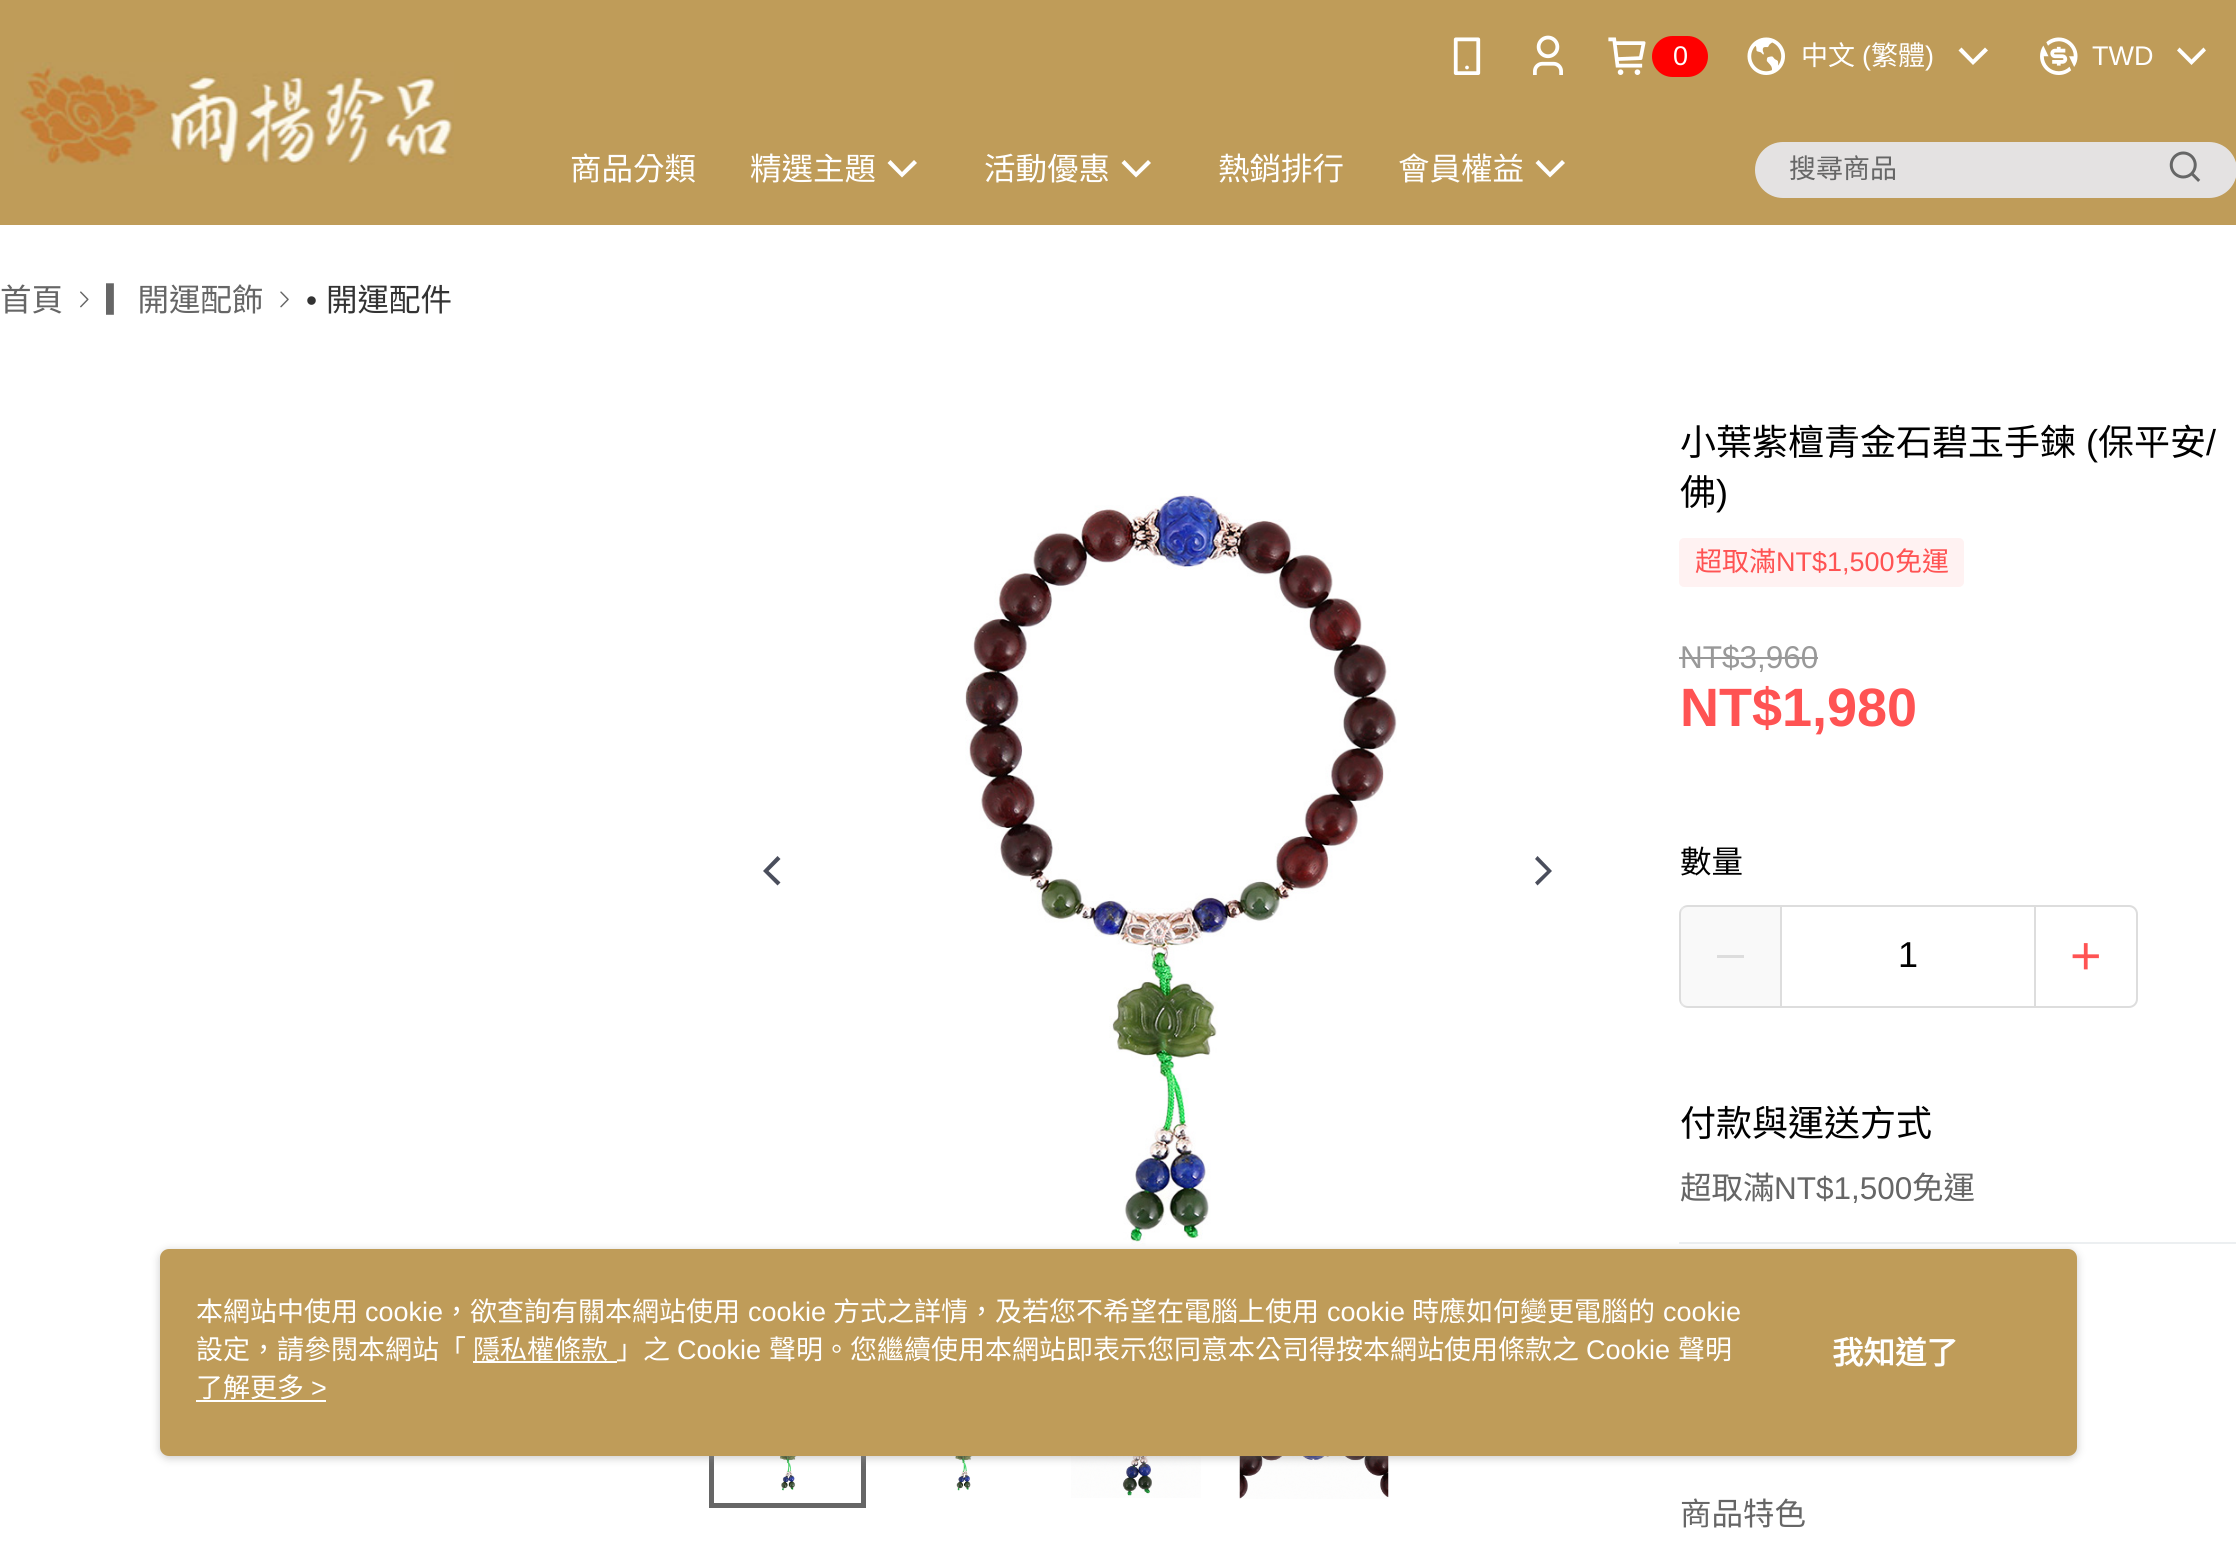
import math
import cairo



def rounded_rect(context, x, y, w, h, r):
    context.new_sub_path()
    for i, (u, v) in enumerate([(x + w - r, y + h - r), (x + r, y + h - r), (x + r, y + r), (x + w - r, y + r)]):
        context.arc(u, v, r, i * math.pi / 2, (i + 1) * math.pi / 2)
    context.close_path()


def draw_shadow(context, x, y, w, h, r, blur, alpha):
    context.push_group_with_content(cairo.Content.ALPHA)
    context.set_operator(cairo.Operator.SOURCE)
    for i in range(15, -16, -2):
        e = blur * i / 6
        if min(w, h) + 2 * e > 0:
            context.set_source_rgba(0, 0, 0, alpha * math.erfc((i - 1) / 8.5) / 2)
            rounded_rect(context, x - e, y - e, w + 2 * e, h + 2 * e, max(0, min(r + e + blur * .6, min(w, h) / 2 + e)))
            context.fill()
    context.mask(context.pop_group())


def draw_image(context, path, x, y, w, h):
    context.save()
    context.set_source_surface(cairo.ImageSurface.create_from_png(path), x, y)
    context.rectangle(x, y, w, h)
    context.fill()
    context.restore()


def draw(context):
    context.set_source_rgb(1, 1, 1)
    context.paint()
    context.set_source_rgb(191 / 255, 156 / 255, 89 / 255)
    context.rectangle(0, 0, 2236, 225)
    context.fill()
    draw_image(context, "images/1.png", 14, 62, 440, 103)
    draw_image(context, "images/2.png", 1453, 37, 28, 38)
    draw_image(context, "images/3.png", 1533, 35, 30, 40)
    draw_image(context, "images/4.png", 1608, 37, 38, 38)
    context.set_source_rgb(1, 0, 0)
    rounded_rect(context, 1652, 36, 56, 41, 20.5)
    context.fill()
    draw_image(context, "images/5.png", 1747, 37, 38, 38)
    context.set_source_rgb(1, 1, 1)
    context.new_path()
    context.move_to(1961.5, 47.5)
    context.line_to(1958.5, 50.5)
    context.line_to(1973, 65)
    context.line_to(1988, 50.5)
    context.line_to(1985, 47.5)
    context.line_to(1973, 59.5)
    context.close_path()
    context.fill()
    draw_image(context, "images/6.png", 2040, 37, 38, 38)
    context.new_path()
    context.move_to(2179.5, 47.5)
    context.line_to(2177, 50.5)
    context.line_to(2191.5, 65)
    context.line_to(2206, 50.5)
    context.line_to(2203.5, 47.5)
    context.line_to(2191.5, 59.5)
    context.close_path()
    context.fill()
    context.new_path()
    context.move_to(890.5, 160)
    context.line_to(887.5, 163)
    context.line_to(902, 177.5)
    context.line_to(917, 163)
    context.line_to(914, 160)
    context.line_to(902, 172)
    context.close_path()
    context.fill()
    context.new_path()
    context.move_to(1124.5, 160)
    context.line_to(1121.5, 163)
    context.line_to(1136, 177.5)
    context.line_to(1151, 163)
    context.line_to(1148, 160)
    context.line_to(1136, 172)
    context.close_path()
    context.fill()
    context.new_path()
    context.move_to(1538.5, 160)
    context.line_to(1535.5, 163)
    context.line_to(1550, 177.5)
    context.line_to(1565, 163)
    context.line_to(1562, 160)
    context.line_to(1550, 172)
    context.close_path()
    context.fill()
    context.set_source_rgb(228 / 255, 226 / 255, 226 / 255)
    rounded_rect(context, 1755, 142, 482, 56, 28)
    context.fill()
    draw_image(context, "images/7.png", 2169, 151, 32, 31)
    draw_image(context, "images/8.png", 80, 291, 9, 17)
    draw_image(context, "images/9.png", 280, 291, 9, 17)
    context.set_source_rgb(74 / 255, 78 / 255, 92 / 255)
    context.new_path()
    context.move_to(780.5, 859)
    context.line_to(777.5, 856)
    context.line_to(763, 871)
    context.line_to(777.5, 885.5)
    context.line_to(780.5, 882.5)
    context.line_to(768.5, 871)
    context.close_path()
    context.fill()
    draw_image(context, "images/10.png", 965, 493, 432, 753)
    context.new_path()
    context.move_to(1535, 882.5)
    context.line_to(1537.5, 885.5)
    context.line_to(1552, 871)
    context.line_to(1537.5, 856)
    context.line_to(1535, 859)
    context.line_to(1547, 871)
    context.close_path()
    context.fill()
    draw_image(context, "images/11.png", 755, 1456, 71, 35)
    context.rectangle(711.5, 1352.5, 152, 153)
    context.set_source_rgb(102 / 255, 102 / 255, 102 / 255)
    context.set_line_width(5)
    context.stroke()
    draw_image(context, "images/12.png", 930, 1456, 72, 35)
    draw_image(context, "images/13.png", 1071, 1456, 130, 42)
    draw_image(context, "images/14.png", 1239, 1456, 150, 43)
    context.set_source_rgb(1, 242 / 255, 242 / 255)
    rounded_rect(context, 1680, 539, 283, 47, 4)
    context.fill_preserve()
    context.set_line_width(2)
    context.stroke()
    context.set_source_rgb(153 / 255, 153 / 255, 153 / 255)
    context.rectangle(1679, 657, 139, 2)
    context.fill()
    rounded_rect(context, 1680, 906, 457, 101, 8)
    context.set_source_rgb(221 / 255, 221 / 255, 221 / 255)
    context.stroke()
    context.set_source_rgba(241 / 255, 241 / 255, 241 / 255, 0.4)
    context.rectangle(1681, 907, 99, 99)
    context.fill()
    context.set_source_rgb(221 / 255, 221 / 255, 221 / 255)
    context.rectangle(1717, 955, 27, 3)
    context.fill()
    context.rectangle(2034, 907, 2, 99)
    context.fill()
    context.rectangle(1780, 907, 2, 99)
    context.fill()
    draw_image(context, "images/15.png", 2072, 943, 27, 27)
    context.set_source_rgb(236 / 255, 239 / 255, 241 / 255)
    context.rectangle(1679, 1242, 557, 2)
    context.fill()
    context.set_source_rgb(151 / 255, 151 / 255, 151 / 255)
    draw_shadow(context, 160, 1251, 1917, 207, 9, 4.5, 0.5)
    context.set_source_rgb(191 / 255, 156 / 255, 89 / 255)
    rounded_rect(context, 160, 1249, 1917, 207, 9)
    context.fill()
    context.set_source_rgb(1, 1, 1)
    context.rectangle(473, 1361, 144, 2)
    context.fill()
    context.rectangle(196, 1400, 130, 2)
    context.fill()
    context.select_font_face("Liberation Sans")
    context.set_font_size(27)
    context.move_to(1673, 65)
    context.show_text("0")
    context.select_font_face("Noto Sans CJK TC")
    context.move_to(1801, 65)
    context.show_text("中文")
    context.select_font_face("Liberation Sans")
    context.move_to(1862, 65)
    context.show_text("(")
    context.select_font_face("Noto Sans CJK TC")
    context.move_to(1871, 65)
    context.show_text("繁體")
    context.select_font_face("Liberation Sans")
    context.move_to(1925, 65)
    context.show_text(")")
    context.move_to(2092, 65)
    context.show_text("TWD")
    context.select_font_face("Noto Sans CJK TC")
    context.set_font_size(31.5)
    context.move_to(570, 180)
    context.show_text("商品分類")
    context.move_to(750, 180)
    context.show_text("精選主題")
    context.move_to(984, 180)
    context.show_text("活動優惠")
    context.move_to(1218, 180)
    context.show_text("熱銷排行")
    context.move_to(1398, 180)
    context.show_text("會員權益")
    context.set_font_size(27)
    context.set_source_rgb(102 / 255, 102 / 255, 102 / 255)
    context.move_to(1789, 178)
    context.show_text("搜尋商品")
    context.set_font_size(31.5)
    context.move_to(0, 311)
    context.show_text("首頁")
    context.move_to(106, 311)
    context.show_text("▎開運配飾")
    context.select_font_face("Liberation Sans")
    context.set_source_rgb(51 / 255, 51 / 255, 51 / 255)
    context.move_to(306, 311)
    context.show_text("•")
    context.select_font_face("Noto Sans CJK TC")
    context.move_to(326, 311)
    context.show_text("開運配件")
    context.set_font_size(36)
    context.set_source_rgb(0, 0, 0)
    context.move_to(1680, 455)
    context.show_text("小葉紫檀青金石碧玉手鍊")
    context.select_font_face("Liberation Sans")
    context.move_to(2086, 455)
    context.show_text("(")
    context.select_font_face("Noto Sans CJK TC")
    context.move_to(2098, 455)
    context.show_text("保平安")
    context.select_font_face("Liberation Sans")
    context.move_to(2206, 455)
    context.show_text("/")
    context.select_font_face("Noto Sans CJK TC")
    context.move_to(1680, 505)
    context.show_text("佛")
    context.select_font_face("Liberation Sans")
    context.move_to(1716, 505)
    context.show_text(")")
    context.select_font_face("Noto Sans CJK TC")
    context.set_font_size(27)
    context.set_source_rgb(1, 83 / 255, 83 / 255)
    context.move_to(1695, 571)
    context.show_text("超取滿")
    context.select_font_face("Liberation Sans")
    context.move_to(1776, 571)
    context.show_text("NT$1,500")
    context.select_font_face("Noto Sans CJK TC")
    context.move_to(1895, 571)
    context.show_text("免運")
    context.select_font_face("Liberation Sans")
    context.set_font_size(31.5)
    context.set_source_rgb(153 / 255, 153 / 255, 153 / 255)
    context.move_to(1680, 668)
    context.show_text("NT$3,960")
    context.select_font_face("Liberation Sans", cairo.FontSlant.NORMAL, cairo.FontWeight.BOLD)
    context.set_font_size(54)
    context.set_source_rgb(1, 83 / 255, 83 / 255)
    context.move_to(1680, 726)
    context.show_text("NT$1,980")
    context.select_font_face("Noto Sans CJK TC")
    context.set_font_size(31.5)
    context.set_source_rgb(0, 0, 0)
    context.move_to(1680, 873)
    context.show_text("數量")
    context.select_font_face("Liberation Sans")
    context.set_font_size(36)
    context.move_to(1898, 967)
    context.show_text("1")
    context.select_font_face("Noto Sans CJK TC")
    context.move_to(1680, 1136)
    context.show_text("付款與運送方式")
    context.set_font_size(31.5)
    context.set_source_rgb(102 / 255, 102 / 255, 102 / 255)
    context.move_to(1680, 1199)
    context.show_text("超取滿")
    context.select_font_face("Liberation Sans")
    context.move_to(1774, 1199)
    context.show_text("NT$1,500")
    context.select_font_face("Noto Sans CJK TC")
    context.move_to(1912, 1199)
    context.show_text("免運")
    context.move_to(1680, 1525)
    context.show_text("商品特色")
    context.set_font_size(27)
    context.set_source_rgb(1, 1, 1)
    context.move_to(196, 1321)
    context.show_text("本網站中使用")
    context.select_font_face("Liberation Sans")
    context.move_to(365, 1321)
    context.show_text("cookie")
    context.select_font_face("Noto Sans CJK TC")
    context.move_to(443, 1321)
    context.show_text("，欲查詢有關本網站使用")
    context.select_font_face("Liberation Sans")
    context.move_to(748, 1321)
    context.show_text("cookie")
    context.select_font_face("Noto Sans CJK TC")
    context.move_to(833, 1321)
    context.show_text("方式之詳情，及若您不希望在電腦上使用")
    context.select_font_face("Liberation Sans")
    context.move_to(1327, 1321)
    context.show_text("cookie")
    context.select_font_face("Noto Sans CJK TC")
    context.move_to(1412, 1321)
    context.show_text("時應如何變更電腦的")
    context.select_font_face("Liberation Sans")
    context.move_to(1663, 1321)
    context.show_text("cookie")
    context.select_font_face("Noto Sans CJK TC")
    context.move_to(196, 1359)
    context.show_text("設定，請參閱本網站「")
    context.move_to(473, 1359)
    context.show_text("隱私權條款")
    context.move_to(616, 1359)
    context.show_text("」之")
    context.select_font_face("Liberation Sans")
    context.move_to(677, 1359)
    context.show_text("Cookie")
    context.select_font_face("Noto Sans CJK TC")
    context.move_to(769, 1359)
    context.show_text("聲明。您繼續使用本網站即表示您同意本公司得按本網站使用條款之")
    context.select_font_face("Liberation Sans")
    context.move_to(1586, 1359)
    context.show_text("Cookie")
    context.select_font_face("Noto Sans CJK TC")
    context.move_to(1678, 1359)
    context.show_text("聲明")
    context.move_to(196, 1397)
    context.show_text("了解更多")
    context.select_font_face("Liberation Sans")
    context.move_to(311, 1397)
    context.show_text(">")
    context.select_font_face("Noto Sans CJK TC", cairo.FontSlant.NORMAL, cairo.FontWeight.BOLD)
    context.set_font_size(31.5)
    context.move_to(1832, 1364)
    context.show_text("我知道了")


surface = cairo.ImageSurface(cairo.Format.RGB24, 2236, 1558)
context = cairo.Context(surface)
options = cairo.FontOptions()
options.set_hint_metrics(cairo.HintMetrics.OFF)
options.set_hint_style(cairo.HintStyle.NONE)
context.set_font_options(options)
context.set_miter_limit(4)
draw(context)
surface.write_to_png("out.png")
